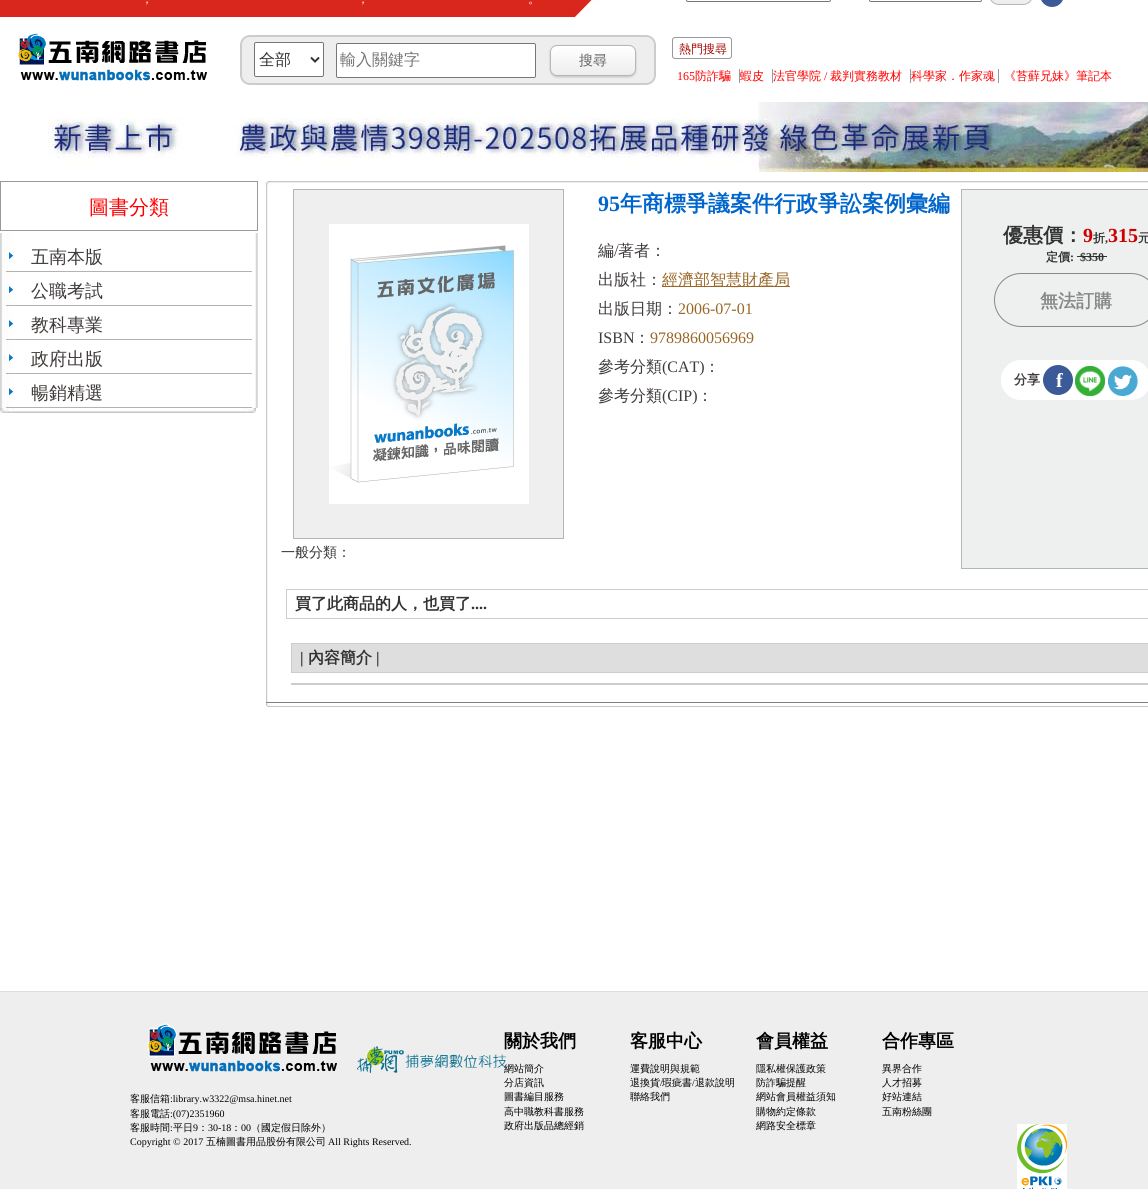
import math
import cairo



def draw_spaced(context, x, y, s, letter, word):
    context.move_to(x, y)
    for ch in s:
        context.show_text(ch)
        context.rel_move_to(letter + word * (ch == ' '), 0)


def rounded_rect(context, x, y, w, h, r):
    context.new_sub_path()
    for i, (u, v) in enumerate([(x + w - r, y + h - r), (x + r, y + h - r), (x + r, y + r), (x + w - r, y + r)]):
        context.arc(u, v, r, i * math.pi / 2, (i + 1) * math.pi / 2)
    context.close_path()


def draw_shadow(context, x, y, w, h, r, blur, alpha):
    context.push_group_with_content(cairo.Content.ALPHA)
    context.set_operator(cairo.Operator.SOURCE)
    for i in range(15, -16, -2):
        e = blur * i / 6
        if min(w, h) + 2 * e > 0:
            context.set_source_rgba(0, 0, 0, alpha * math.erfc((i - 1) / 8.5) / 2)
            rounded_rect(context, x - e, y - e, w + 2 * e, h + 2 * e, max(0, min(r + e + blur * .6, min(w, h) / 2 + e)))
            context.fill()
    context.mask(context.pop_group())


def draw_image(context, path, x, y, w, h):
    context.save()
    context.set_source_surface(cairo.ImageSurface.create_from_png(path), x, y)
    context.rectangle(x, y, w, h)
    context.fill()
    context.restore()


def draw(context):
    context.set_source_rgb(1, 1, 1)
    context.paint()
    draw_image(context, "images/1.png", 0, 0, 600, 17)
    rounded_rect(context, 686.5, -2.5, 144, 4, 1.5)
    context.set_source_rgb(118 / 255, 118 / 255, 118 / 255)
    context.set_line_width(1)
    context.stroke()
    rounded_rect(context, 869.5, -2.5, 112, 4, 1.5)
    context.stroke()
    context.save()
    rounded_rect(context, 989, -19, 44, 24, 10)
    context.clip()
    gradient = cairo.LinearGradient(990, -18, 990, 4)
    gradient.add_color_stop_rgba(0, 1, 1, 1, 1)
    gradient.add_color_stop_rgba(1, 237 / 255, 237 / 255, 237 / 255, 1)
    context.set_source(gradient)
    context.rectangle(989, 0, 44, 4)
    context.fill()
    context.restore()
    rounded_rect(context, 989.5, -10.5, 43, 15, 9.5)
    context.set_source_rgb(183 / 255, 183 / 255, 183 / 255)
    context.stroke()
    context.set_source_rgb(60 / 255, 90 / 255, 152 / 255)
    rounded_rect(context, 1040, -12, 24, 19, 12)
    context.fill()
    draw_image(context, "images/2.png", 18, 33, 189, 48)
    context.set_source_rgb(238 / 255, 238 / 255, 238 / 255)
    rounded_rect(context, 241, 36, 414, 48, 9)
    context.fill_preserve()
    context.set_source_rgb(204 / 255, 204 / 255, 204 / 255)
    context.set_line_width(2)
    context.stroke()
    context.set_source_rgb(1, 1, 1)
    rounded_rect(context, 254.5, 42.5, 69, 34, 1.5)
    context.fill_preserve()
    context.set_source_rgb(118 / 255, 118 / 255, 118 / 255)
    context.set_line_width(1)
    context.stroke()
    context.new_path()
    context.move_to(311, 57.5)
    context.line_to(315, 61.5)
    context.line_to(319, 57.5)
    context.set_source_rgb(51 / 255, 51 / 255, 51 / 255)
    context.set_line_width(2)
    context.stroke()
    context.set_source_rgb(1, 1, 1)
    rounded_rect(context, 336.5, 43.5, 199, 34, 1.5)
    context.fill_preserve()
    context.set_source_rgb(118 / 255, 118 / 255, 118 / 255)
    context.set_line_width(1)
    context.stroke()
    context.set_source_rgb(0, 0, 0)
    draw_shadow(context, 550, 46, 86, 31, 7, 1, 0.2)
    context.save()
    rounded_rect(context, 550, 45, 86, 31, 7)
    context.clip()
    gradient = cairo.LinearGradient(551, 46, 551, 75)
    gradient.add_color_stop_rgba(0, 1, 1, 1, 1)
    gradient.add_color_stop_rgba(1, 237 / 255, 237 / 255, 237 / 255, 1)
    context.set_source(gradient)
    context.rectangle(550, 46, 86, 29)
    context.fill()
    context.restore()
    rounded_rect(context, 550.5, 45.5, 85, 30, 6.5)
    context.set_source_rgb(183 / 255, 183 / 255, 183 / 255)
    context.stroke()
    rounded_rect(context, 672.5, 37.5, 59, 21, 2.5)
    context.set_source_rgb(153 / 255, 153 / 255, 153 / 255)
    context.stroke()
    context.rectangle(739, 69, 1, 14)
    context.fill()
    context.rectangle(772, 69, 1, 14)
    context.fill()
    context.rectangle(910, 69, 1, 14)
    context.fill()
    context.rectangle(998, 69, 1, 14)
    context.fill()
    draw_image(context, "images/3.png", 48, 102, 1100, 70)
    context.rectangle(0.5, 181.5, 257, 49)
    context.stroke()
    draw_image(context, "images/4.png", 0, 233, 258, 175)
    context.set_source_rgb(179 / 255, 179 / 255, 179 / 255)
    context.rectangle(6, 271, 246, 1)
    context.fill()
    draw_image(context, "images/5.png", 6, 250, 8, 16)
    context.rectangle(6, 305, 246, 1)
    context.fill()
    draw_image(context, "images/5.png", 6, 284, 8, 16)
    context.rectangle(6, 339, 246, 1)
    context.fill()
    draw_image(context, "images/5.png", 6, 318, 8, 16)
    context.rectangle(6, 373, 246, 1)
    context.fill()
    draw_image(context, "images/5.png", 6, 352, 8, 16)
    context.rectangle(6, 407, 246, 1)
    context.fill()
    draw_image(context, "images/5.png", 6, 386, 8, 16)
    draw_image(context, "images/6.png", 0, 408, 256, 5)
    draw_image(context, "images/7.png", 266, 181, 882, 5)
    draw_image(context, "images/8.png", 266, 186, 2, 516)
    context.set_source_rgb(153 / 255, 102 / 255, 37 / 255)
    context.rectangle(662, 286, 128, 1)
    context.fill()
    context.set_source_rgb(238 / 255, 239 / 255, 239 / 255)
    context.rectangle(961.5, 189.5, 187, 379)
    context.fill_preserve()
    context.set_source_rgb(180 / 255, 181 / 255, 181 / 255)
    context.stroke()
    rounded_rect(context, 994.5, 273.5, 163, 53, 26.5)
    context.set_source_rgb(136 / 255, 136 / 255, 137 / 255)
    context.stroke()
    context.set_source_rgb(1, 1, 1)
    rounded_rect(context, 1001, 360, 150, 40, 20)
    context.fill()
    context.set_source_rgb(60 / 255, 90 / 255, 152 / 255)
    context.arc(1058, 380, 15, 0, 2 * math.pi)
    context.fill()
    draw_image(context, "images/9.png", 1075, 366, 30, 30)
    draw_image(context, "images/10.png", 1108, 366, 30, 30)
    context.set_source_rgb(239 / 255, 239 / 255, 239 / 255)
    context.rectangle(294, 190, 269, 348)
    context.fill()
    context.set_source_rgb(180 / 255, 181 / 255, 181 / 255)
    context.rectangle(293, 189, 271, 1)
    context.fill()
    context.rectangle(563, 189, 1, 350)
    context.fill()
    context.rectangle(293, 538, 271, 1)
    context.fill()
    context.rectangle(293, 189, 1, 350)
    context.fill()
    draw_image(context, "images/11.png", 329, 224, 200, 280)
    context.rectangle(286.5, 589.5, 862, 29)
    context.set_source_rgb(204 / 255, 204 / 255, 204 / 255)
    context.stroke()
    context.set_source_rgb(222 / 255, 222 / 255, 222 / 255)
    context.rectangle(291.5, 643.5, 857, 29)
    context.fill_preserve()
    context.set_source_rgb(204 / 255, 204 / 255, 204 / 255)
    context.stroke()
    context.rectangle(291, 683, 857, 2)
    context.fill()
    context.set_source_rgb(128 / 255, 128 / 255, 128 / 255)
    context.rectangle(266, 702, 882, 1)
    context.fill()
    draw_image(context, "images/12.png", 266, 703, 882, 4)
    context.set_source_rgb(238 / 255, 238 / 255, 238 / 255)
    context.rectangle(0, 992, 1148, 197)
    context.fill()
    context.set_source_rgb(221 / 255, 221 / 255, 221 / 255)
    context.rectangle(0, 991, 1148, 1)
    context.fill()
    draw_image(context, "images/13.png", 147, 1023, 190, 49)
    draw_image(context, "images/14.png", 357, 1046, 150, 27)
    draw_image(context, "images/15.png", 1017, 1124, 50, 65)
    context.select_font_face("WenQuanYi Zen Hei Medium")
    context.set_font_size(12)
    context.set_source_rgb(1, 1, 1)
    context.move_to(141, 3)
    context.show_text("，")
    context.move_to(357, 3)
    context.show_text("，")
    context.move_to(528, 3)
    context.show_text("。")
    context.set_font_size(16)
    context.set_source_rgb(51 / 255, 51 / 255, 51 / 255)
    context.move_to(259, 65)
    context.show_text("全部")
    context.set_source_rgb(117 / 255, 117 / 255, 117 / 255)
    context.move_to(340, 65)
    context.show_text("輸入關鍵字")
    context.set_font_size(14)
    context.set_source_rgb(96 / 255, 96 / 255, 96 / 255)
    context.move_to(579, 65)
    context.show_text("搜尋")
    context.set_font_size(12)
    context.set_source_rgb(161 / 255, 6 / 255, 2 / 255)
    context.move_to(679, 53)
    context.show_text("熱門搜尋")
    context.select_font_face("Liberation Serif")
    context.set_source_rgb(1, 0, 0)
    context.move_to(677, 80)
    context.show_text("165")
    context.select_font_face("WenQuanYi Zen Hei Medium")
    context.move_to(695, 80)
    context.show_text("防詐騙")
    context.move_to(740, 80)
    context.show_text("蝦皮")
    context.move_to(773, 80)
    context.show_text("法官學院")
    context.select_font_face("Liberation Serif")
    context.move_to(824, 80)
    context.show_text("/")
    context.select_font_face("WenQuanYi Zen Hei Medium")
    context.move_to(830, 80)
    context.show_text("裁判實務教材")
    context.move_to(911, 80)
    context.show_text("科學家．作家魂")
    context.move_to(1004, 80)
    context.show_text("《苔蘚兄妹》筆記本")
    context.set_font_size(20)
    context.move_to(89, 214)
    context.show_text("圖書分類")
    context.set_font_size(18)
    context.set_source_rgb(63 / 255, 59 / 255, 58 / 255)
    context.move_to(31, 263)
    context.show_text("五南本版")
    context.move_to(31, 297)
    context.show_text("公職考試")
    context.move_to(31, 331)
    context.show_text("教科專業")
    context.move_to(31, 365)
    context.show_text("政府出版")
    context.move_to(31, 399)
    context.show_text("暢銷精選")
    context.select_font_face("Liberation Serif", cairo.FontSlant.NORMAL, cairo.FontWeight.BOLD)
    context.set_font_size(22)
    context.set_source_rgb(0, 102 / 255, 204 / 255)
    context.move_to(598, 211)
    context.show_text("95")
    context.select_font_face("WenQuanYi Zen Hei", cairo.FontSlant.NORMAL, cairo.FontWeight.BOLD)
    context.move_to(620, 211)
    context.show_text("年商標爭議案件行政爭訟案例彙編")
    context.select_font_face("WenQuanYi Zen Hei Medium")
    context.set_font_size(16)
    context.set_source_rgb(63 / 255, 59 / 255, 58 / 255)
    context.move_to(598, 256)
    context.show_text("編")
    context.select_font_face("Liberation Serif")
    context.move_to(614, 256)
    context.show_text("/")
    context.select_font_face("WenQuanYi Zen Hei Medium")
    context.move_to(618, 256)
    context.show_text("著者：")
    context.move_to(598, 285)
    context.show_text("出版社：")
    context.set_source_rgb(153 / 255, 102 / 255, 37 / 255)
    context.move_to(662, 285)
    context.show_text("經濟部智慧財產局")
    context.set_source_rgb(63 / 255, 59 / 255, 58 / 255)
    context.move_to(598, 314)
    context.show_text("出版日期：")
    context.select_font_face("Liberation Serif")
    context.set_source_rgb(153 / 255, 102 / 255, 37 / 255)
    context.move_to(678, 314)
    context.show_text("2006-07-01")
    context.set_source_rgb(63 / 255, 59 / 255, 58 / 255)
    context.move_to(598, 343)
    context.show_text("ISBN")
    context.select_font_face("WenQuanYi Zen Hei Medium")
    context.move_to(634, 343)
    context.show_text("：")
    context.select_font_face("Liberation Serif")
    context.set_source_rgb(153 / 255, 102 / 255, 37 / 255)
    context.move_to(650, 343)
    context.show_text("9789860056969")
    context.select_font_face("WenQuanYi Zen Hei Medium")
    context.set_source_rgb(63 / 255, 59 / 255, 58 / 255)
    context.move_to(598, 372)
    context.show_text("參考分類")
    context.select_font_face("Liberation Serif")
    context.move_to(662, 372)
    context.show_text("(CAT)")
    context.select_font_face("WenQuanYi Zen Hei Medium")
    context.move_to(704, 372)
    context.show_text("：")
    context.move_to(598, 401)
    context.show_text("參考分類")
    context.select_font_face("Liberation Serif")
    context.move_to(662, 401)
    context.show_text("(CIP)")
    context.select_font_face("WenQuanYi Zen Hei Medium")
    context.move_to(697, 401)
    context.show_text("：")
    context.select_font_face("WenQuanYi Zen Hei", cairo.FontSlant.NORMAL, cairo.FontWeight.BOLD)
    context.set_font_size(20)
    context.set_source_rgb(51 / 255, 51 / 255, 51 / 255)
    context.move_to(1003, 242)
    context.show_text("優惠價：")
    context.select_font_face("Liberation Serif", cairo.FontSlant.NORMAL, cairo.FontWeight.BOLD)
    context.set_source_rgb(205 / 255, 0, 0)
    context.move_to(1083, 242)
    context.show_text("9")
    context.move_to(1108, 242)
    context.show_text("315")
    context.select_font_face("WenQuanYi Zen Hei", cairo.FontSlant.NORMAL, cairo.FontWeight.BOLD)
    context.set_font_size(12)
    context.set_source_rgb(51 / 255, 51 / 255, 51 / 255)
    context.move_to(1138, 242)
    context.show_text("元")
    context.move_to(1046, 261)
    context.show_text("定價")
    context.select_font_face("Liberation Serif", cairo.FontSlant.NORMAL, cairo.FontWeight.BOLD)
    context.move_to(1070, 261)
    context.show_text(":")
    context.move_to(1080, 261)
    context.show_text("$350")
    context.set_source_rgb(49 / 255, 49 / 255, 49 / 255)
    context.rectangle(1077, 256, 30, 1)
    context.fill()
    context.select_font_face("WenQuanYi Zen Hei", cairo.FontSlant.NORMAL, cairo.FontWeight.BOLD)
    context.set_font_size(18)
    context.set_source_rgb(136 / 255, 136 / 255, 137 / 255)
    context.move_to(1040, 307)
    context.show_text("無法訂購")
    context.set_font_size(12)
    context.set_source_rgb(51 / 255, 51 / 255, 51 / 255)
    context.move_to(1093, 242)
    context.show_text("折")
    context.select_font_face("Liberation Serif", cairo.FontSlant.NORMAL, cairo.FontWeight.BOLD)
    context.move_to(1105, 242)
    context.show_text(",")
    context.select_font_face("WenQuanYi Zen Hei", cairo.FontSlant.NORMAL, cairo.FontWeight.BOLD)
    context.set_font_size(13)
    context.set_source_rgb(63 / 255, 59 / 255, 58 / 255)
    context.move_to(1014, 384)
    context.show_text("分享")
    context.select_font_face("Liberation Serif", cairo.FontSlant.NORMAL, cairo.FontWeight.BOLD)
    context.set_font_size(20)
    context.set_source_rgb(1, 1, 1)
    draw_spaced(context, 1056, 387, "f", 10, 0)
    context.select_font_face("WenQuanYi Zen Hei Medium")
    context.set_font_size(14)
    context.set_source_rgb(51 / 255, 51 / 255, 51 / 255)
    context.move_to(281, 557)
    context.show_text("一般分類：")
    context.select_font_face("WenQuanYi Zen Hei", cairo.FontSlant.NORMAL, cairo.FontWeight.BOLD)
    context.set_font_size(16)
    context.move_to(295, 609)
    context.show_text("買了此商品的人，也買了")
    context.select_font_face("Liberation Serif", cairo.FontSlant.NORMAL, cairo.FontWeight.BOLD)
    context.move_to(471, 609)
    context.show_text("....")
    context.move_to(300, 663)
    context.show_text("|")
    context.select_font_face("WenQuanYi Zen Hei", cairo.FontSlant.NORMAL, cairo.FontWeight.BOLD)
    context.move_to(308, 663)
    context.show_text("內容簡介")
    context.select_font_face("Liberation Serif", cairo.FontSlant.NORMAL, cairo.FontWeight.BOLD)
    context.move_to(376, 663)
    context.show_text("|")
    context.select_font_face("WenQuanYi Zen Hei Medium")
    context.set_font_size(10)
    context.set_source_rgb(0, 0, 0)
    context.move_to(130, 1102)
    context.show_text("客服信箱")
    context.select_font_face("Liberation Serif")
    context.move_to(170, 1102)
    context.show_text(":library.w3322@msa.hinet.net")
    context.select_font_face("WenQuanYi Zen Hei Medium")
    context.move_to(130, 1117)
    context.show_text("客服電話")
    context.select_font_face("Liberation Serif")
    context.move_to(170, 1117)
    context.show_text(":(07)2351960")
    context.select_font_face("WenQuanYi Zen Hei Medium")
    context.move_to(130, 1131)
    context.show_text("客服時間 平日")
    context.select_font_face("Liberation Serif")
    context.move_to(193, 1131)
    context.show_text("9")
    context.select_font_face("WenQuanYi Zen Hei Medium")
    context.move_to(198, 1131)
    context.show_text("：")
    context.select_font_face("Liberation Serif")
    context.move_to(208, 1131)
    context.show_text("30-18")
    context.select_font_face("WenQuanYi Zen Hei Medium")
    context.move_to(231, 1131)
    context.show_text("：")
    context.select_font_face("Liberation Serif")
    context.move_to(241, 1131)
    context.show_text("00")
    context.select_font_face("WenQuanYi Zen Hei Medium")
    context.move_to(251, 1131)
    context.show_text("（國定假日除外）")
    context.select_font_face("Liberation Serif")
    context.move_to(170, 1131)
    context.show_text(":")
    context.move_to(130, 1145)
    context.show_text("Copyright © 2017")
    context.select_font_face("WenQuanYi Zen Hei Medium")
    context.move_to(206, 1145)
    context.show_text("五楠圖書用品股份有限公司")
    context.select_font_face("Liberation Serif")
    context.move_to(328, 1145)
    context.show_text("All Rights Reserved.")
    context.select_font_face("WenQuanYi Zen Hei", cairo.FontSlant.NORMAL, cairo.FontWeight.BOLD)
    context.set_font_size(18)
    context.move_to(504, 1047)
    context.show_text("關於我們")
    context.select_font_face("WenQuanYi Zen Hei Medium")
    context.set_font_size(10)
    context.move_to(504, 1072)
    context.show_text("網站簡介")
    context.move_to(504, 1086)
    context.show_text("分店資訊")
    context.move_to(504, 1100)
    context.show_text("圖書編目服務")
    context.move_to(504, 1115)
    context.show_text("高中職教科書服務")
    context.move_to(504, 1129)
    context.show_text("政府出版品總經銷")
    context.select_font_face("WenQuanYi Zen Hei", cairo.FontSlant.NORMAL, cairo.FontWeight.BOLD)
    context.set_font_size(18)
    context.move_to(630, 1047)
    context.show_text("客服中心")
    context.select_font_face("WenQuanYi Zen Hei Medium")
    context.set_font_size(10)
    context.move_to(630, 1072)
    context.show_text("運費說明與規範")
    context.move_to(630, 1086)
    context.show_text("退換貨")
    context.select_font_face("Liberation Serif")
    context.move_to(660, 1086)
    context.show_text("/")
    context.select_font_face("WenQuanYi Zen Hei Medium")
    context.move_to(662, 1086)
    context.show_text("瑕疵書")
    context.select_font_face("Liberation Serif")
    context.move_to(692, 1086)
    context.show_text("/")
    context.select_font_face("WenQuanYi Zen Hei Medium")
    context.move_to(695, 1086)
    context.show_text("退款說明")
    context.move_to(630, 1100)
    context.show_text("聯絡我們")
    context.select_font_face("WenQuanYi Zen Hei", cairo.FontSlant.NORMAL, cairo.FontWeight.BOLD)
    context.set_font_size(18)
    context.move_to(756, 1047)
    context.show_text("會員權益")
    context.select_font_face("WenQuanYi Zen Hei Medium")
    context.set_font_size(10)
    context.move_to(756, 1072)
    context.show_text("隱私權保護政策")
    context.move_to(756, 1086)
    context.show_text("防詐騙提醒")
    context.move_to(756, 1100)
    context.show_text("網站會員權益須知")
    context.move_to(756, 1115)
    context.show_text("購物約定條款")
    context.move_to(756, 1129)
    context.show_text("網路安全標章")
    context.select_font_face("WenQuanYi Zen Hei", cairo.FontSlant.NORMAL, cairo.FontWeight.BOLD)
    context.set_font_size(18)
    context.move_to(882, 1047)
    context.show_text("合作專區")
    context.select_font_face("WenQuanYi Zen Hei Medium")
    context.set_font_size(10)
    context.move_to(882, 1072)
    context.show_text("異界合作")
    context.move_to(882, 1086)
    context.show_text("人才招募")
    context.move_to(882, 1100)
    context.show_text("好站連結")
    context.move_to(882, 1115)
    context.show_text("五南粉絲團")


surface = cairo.ImageSurface(cairo.Format.RGB24, 1148, 1189)
context = cairo.Context(surface)
options = cairo.FontOptions()
options.set_hint_metrics(cairo.HintMetrics.OFF)
options.set_hint_style(cairo.HintStyle.NONE)
context.set_font_options(options)
context.set_miter_limit(4)
draw(context)
surface.write_to_png("out.png")
